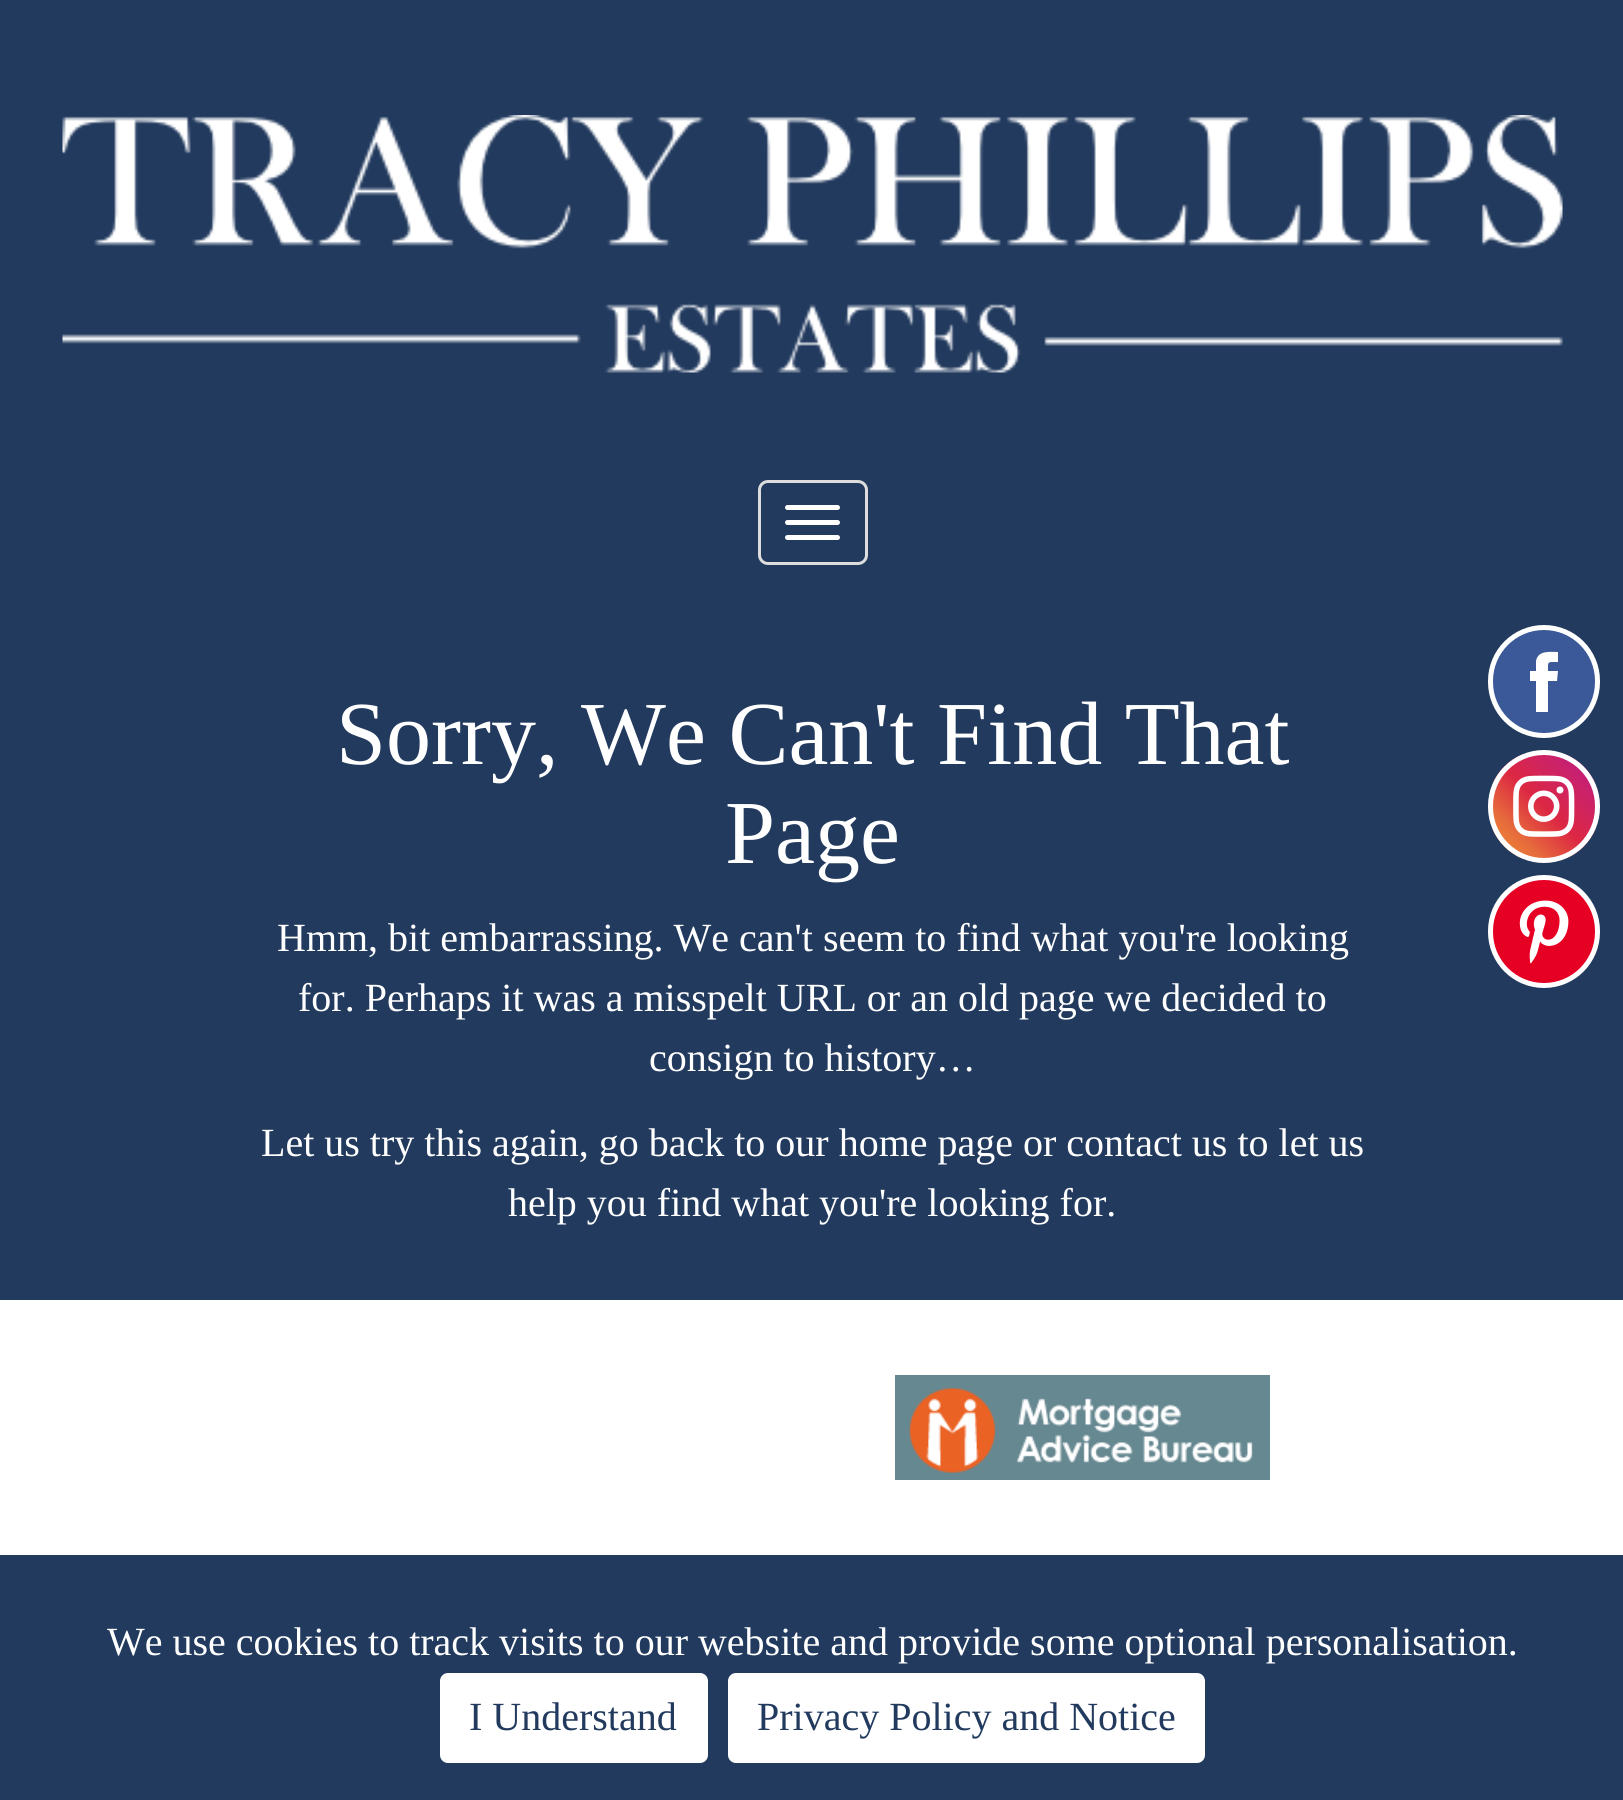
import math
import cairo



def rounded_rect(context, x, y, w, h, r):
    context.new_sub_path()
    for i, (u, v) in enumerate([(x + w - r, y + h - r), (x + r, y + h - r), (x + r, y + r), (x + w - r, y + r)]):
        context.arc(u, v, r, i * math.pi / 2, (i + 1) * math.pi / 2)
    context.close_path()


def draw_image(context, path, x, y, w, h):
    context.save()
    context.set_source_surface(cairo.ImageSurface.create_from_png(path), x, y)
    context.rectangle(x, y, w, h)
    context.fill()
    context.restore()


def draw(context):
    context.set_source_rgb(34 / 255, 58 / 255, 94 / 255)
    context.paint()
    draw_image(context, "images/1.png", 62, 115, 1501, 258)
    rounded_rect(context, 759.5, 481.5, 107, 82, 8.5)
    context.set_source_rgb(221 / 255, 221 / 255, 221 / 255)
    context.set_line_width(3)
    context.stroke()
    context.set_source_rgb(1, 1, 1)
    rounded_rect(context, 785, 505, 55, 5, 2.5)
    context.fill()
    rounded_rect(context, 785, 520, 55, 5, 2.5)
    context.fill()
    rounded_rect(context, 785, 535, 55, 5, 2.5)
    context.fill()
    context.set_source_rgb(59 / 255, 89 / 255, 152 / 255)
    rounded_rect(context, 1490.5, 627.5, 107, 108, 53.5)
    context.fill_preserve()
    context.set_source_rgb(1, 1, 1)
    context.set_line_width(5)
    context.stroke()
    context.new_path()
    context.move_to(1536, 671)
    context.line_to(1530, 671)
    context.line_to(1530, 681)
    context.line_to(1536, 681)
    context.line_to(1536, 712)
    context.line_to(1548, 712)
    context.line_to(1548, 681)
    context.line_to(1557, 681)
    context.line_to(1558, 671)
    context.line_to(1548, 671)
    context.curve_to(1548, 661, 1547, 662, 1558, 662)
    context.line_to(1558, 652)
    context.curve_to(1550, 652, 1538, 650, 1536, 661)
    context.close_path()
    context.fill()
    context.save()
    rounded_rect(context, 1488, 750, 112, 113, 56)
    context.clip()
    gradient = cairo.LinearGradient(1493, 858, 1595, 755)
    gradient.add_color_stop_rgba(0, 240 / 255, 148 / 255, 51 / 255, 1)
    gradient.add_color_stop_rgba(0.25, 230 / 255, 104 / 255, 60 / 255, 1)
    gradient.add_color_stop_rgba(0.5, 220 / 255, 39 / 255, 67 / 255, 1)
    gradient.add_color_stop_rgba(0.75, 204 / 255, 35 / 255, 102 / 255, 1)
    gradient.add_color_stop_rgba(1, 188 / 255, 24 / 255, 136 / 255, 1)
    context.set_source(gradient)
    context.rectangle(1493, 755, 102, 103)
    context.fill()
    context.restore()
    rounded_rect(context, 1490.5, 752.5, 107, 108, 53.5)
    context.stroke()
    draw_image(context, "images/2.png", 1513, 775, 62, 62)
    context.set_source_rgb(230 / 255, 0, 35 / 255)
    rounded_rect(context, 1490.5, 877.5, 107, 108, 53.5)
    context.fill_preserve()
    context.set_source_rgb(1, 1, 1)
    context.stroke()
    draw_image(context, "images/3.png", 1519, 900, 50, 64)
    context.rectangle(0, 1300, 1623, 255)
    context.fill()
    draw_image(context, "images/4.png", 895, 1375, 375, 105)
    rounded_rect(context, 440, 1673, 268, 90, 8)
    context.fill()
    rounded_rect(context, 728, 1673, 477, 90, 8)
    context.fill()
    context.select_font_face("Liberation Serif")
    context.set_font_size(90)
    context.move_to(336, 764)
    context.show_text("Sorry, We Can't Find That")
    context.move_to(725, 863)
    context.show_text("Page")
    context.set_font_size(40)
    context.move_to(277, 951)
    context.show_text("Hmm, bit embarrassing. We can't seem to find what you're looking")
    context.move_to(298, 1011)
    context.show_text("for. Perhaps it was a misspelt URL or an old page we decided to")
    context.move_to(649, 1071)
    context.show_text("consign to history…")
    context.move_to(261, 1156)
    context.show_text("Let us try this again, go back to our home page or contact us to let us")
    context.move_to(508, 1216)
    context.show_text("help you find what you're looking for.")
    context.move_to(107, 1655)
    context.show_text("We use cookies to track visits to our website and provide some optional personalisation.")
    context.set_source_rgb(34 / 255, 58 / 255, 94 / 255)
    context.move_to(469, 1730)
    context.show_text("I Understand")
    context.move_to(757, 1730)
    context.show_text("Privacy Policy and Notice")


surface = cairo.ImageSurface(cairo.Format.RGB24, 1623, 1800)
context = cairo.Context(surface)
options = cairo.FontOptions()
options.set_hint_metrics(cairo.HintMetrics.OFF)
options.set_hint_style(cairo.HintStyle.NONE)
context.set_font_options(options)
context.set_miter_limit(4)
draw(context)
surface.write_to_png("out.png")
